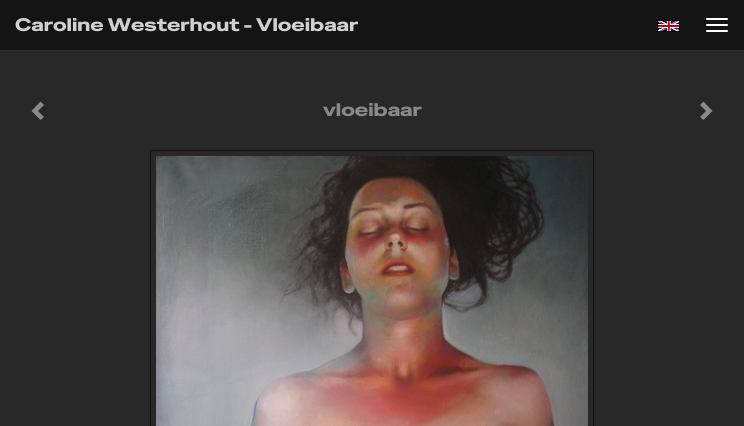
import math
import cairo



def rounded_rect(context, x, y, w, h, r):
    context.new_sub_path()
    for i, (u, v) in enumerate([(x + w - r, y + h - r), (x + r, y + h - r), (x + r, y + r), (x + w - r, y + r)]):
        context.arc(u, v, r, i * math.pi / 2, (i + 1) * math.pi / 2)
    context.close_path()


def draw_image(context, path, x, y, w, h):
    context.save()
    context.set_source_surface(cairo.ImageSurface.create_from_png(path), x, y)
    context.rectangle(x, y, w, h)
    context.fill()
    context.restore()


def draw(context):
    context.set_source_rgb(40 / 255, 40 / 255, 40 / 255)
    context.paint()
    context.set_source_rgb(20 / 255, 20 / 255, 20 / 255)
    context.rectangle(0, 0, 744, 50)
    context.fill()
    context.set_source_rgb(45 / 255, 45 / 255, 45 / 255)
    context.rectangle(0, 50, 744, 1)
    context.fill()
    context.set_source_rgb(1, 1, 1)
    rounded_rect(context, 706, 18, 22, 2, 1)
    context.fill()
    rounded_rect(context, 706, 24, 22, 2, 1)
    context.fill()
    rounded_rect(context, 706, 30, 22, 2, 1)
    context.fill()
    draw_image(context, "images/1.png", 657, 20, 23, 12)
    context.set_source_rgb(137 / 255, 137 / 255, 139 / 255)
    context.new_path()
    context.move_to(44, 105)
    context.line_to(38, 111)
    context.line_to(44, 117)
    context.line_to(40.5, 120)
    context.line_to(31.5, 111)
    context.line_to(40.5, 101.5)
    context.close_path()
    context.fill()
    context.new_path()
    context.move_to(712.5, 111)
    context.line_to(703.5, 120)
    context.line_to(700, 117)
    context.line_to(706, 111)
    context.line_to(700, 105)
    context.line_to(703.5, 101.5)
    context.close_path()
    context.fill()
    rounded_rect(context, 150.5, 150.5, 443, 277, 0.5)
    context.set_source_rgb(20 / 255, 20 / 255, 20 / 255)
    context.set_line_width(1)
    context.stroke()
    draw_image(context, "images/2.png", 156, 156, 432, 270)
    context.select_font_face("Special Gothic Expanded One")
    context.set_font_size(18)
    context.set_source_rgb(208 / 255, 208 / 255, 208 / 255)
    context.move_to(15, 31)
    context.show_text("Caroline Westerhout - Vloeibaar")
    context.set_source_rgb(137 / 255, 137 / 255, 139 / 255)
    context.move_to(323, 116)
    context.show_text("vloeibaar")


surface = cairo.ImageSurface(cairo.Format.RGB24, 744, 426)
context = cairo.Context(surface)
options = cairo.FontOptions()
options.set_hint_metrics(cairo.HintMetrics.OFF)
options.set_hint_style(cairo.HintStyle.NONE)
context.set_font_options(options)
context.set_miter_limit(4)
draw(context)
surface.write_to_png("out.png")
